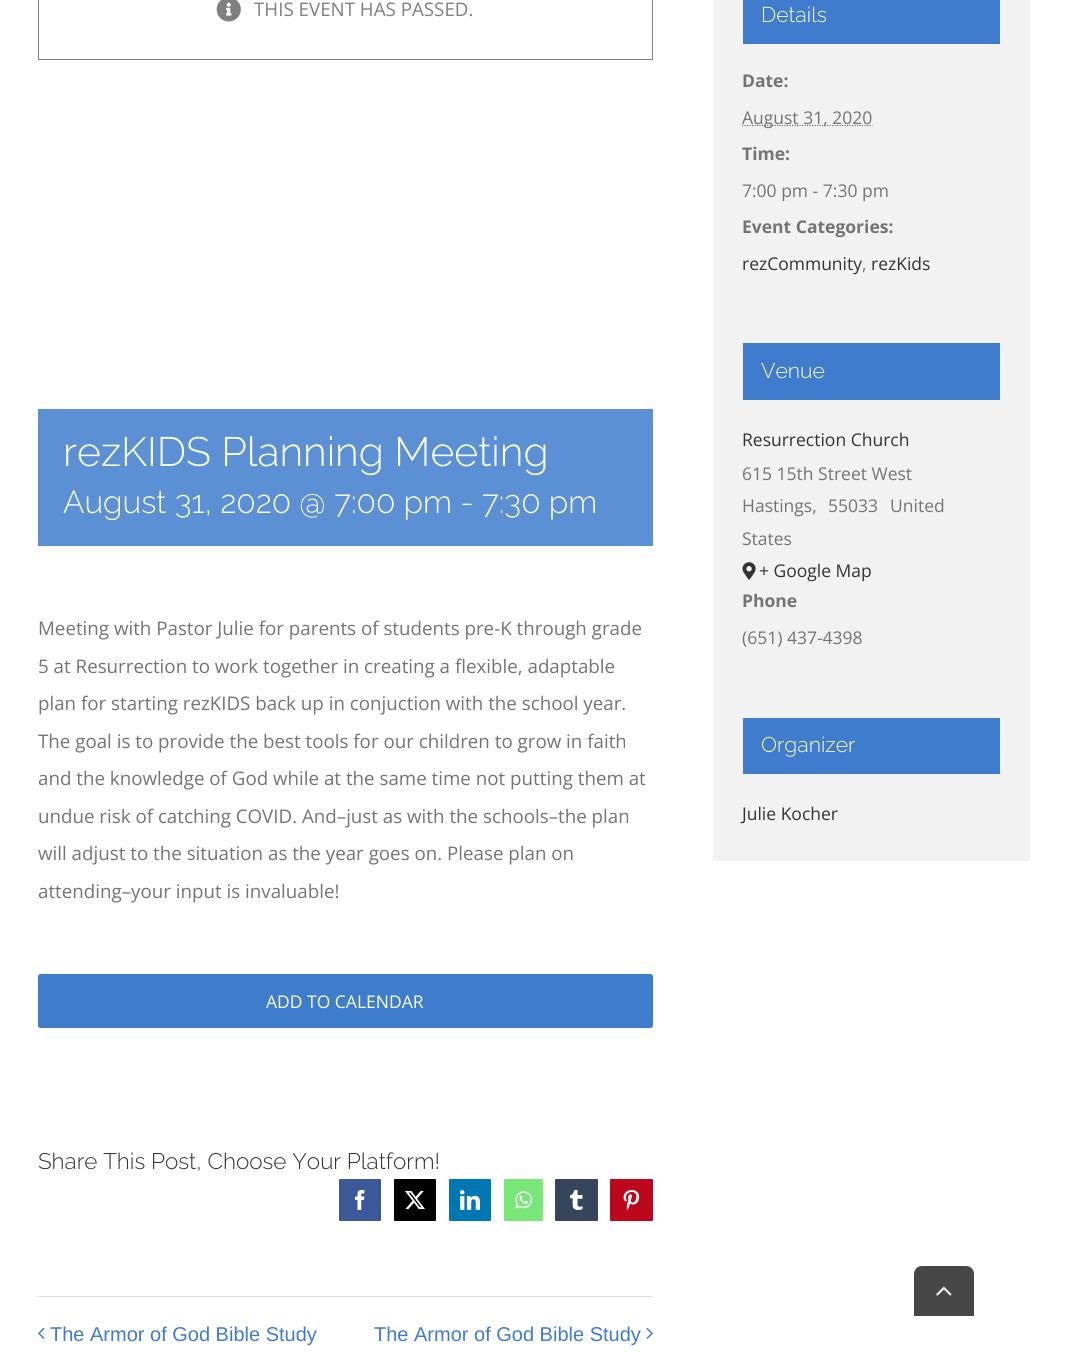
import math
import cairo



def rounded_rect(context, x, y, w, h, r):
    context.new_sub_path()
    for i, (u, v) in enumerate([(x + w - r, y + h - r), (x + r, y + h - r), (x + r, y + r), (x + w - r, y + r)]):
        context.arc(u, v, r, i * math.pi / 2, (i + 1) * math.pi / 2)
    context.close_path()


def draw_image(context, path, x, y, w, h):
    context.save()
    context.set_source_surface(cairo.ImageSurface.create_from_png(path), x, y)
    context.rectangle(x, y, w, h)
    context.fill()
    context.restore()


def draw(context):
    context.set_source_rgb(1, 1, 1)
    context.paint()
    context.rectangle(38.5, -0.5, 614, 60)
    context.set_source_rgb(128 / 255, 128 / 255, 128 / 255)
    context.set_line_width(1)
    context.stroke()
    draw_image(context, "images/1.png", 216, 0, 25, 22)
    context.set_source_rgb(92 / 255, 144 / 255, 213 / 255)
    context.rectangle(38, 409, 615, 137)
    context.fill()
    context.set_source_rgb(62 / 255, 124 / 255, 204 / 255)
    rounded_rect(context, 38, 974, 615, 54, 2.5)
    context.fill()
    context.set_source_rgb(59 / 255, 89 / 255, 152 / 255)
    rounded_rect(context, 339.5, 1179.5, 41, 41, 0.5)
    context.fill_preserve()
    context.stroke()
    draw_image(context, "images/2.png", 355, 1190, 10, 20)
    context.set_source_rgb(0, 0, 0)
    rounded_rect(context, 394.5, 1179.5, 41, 41, 0.5)
    context.fill_preserve()
    context.stroke()
    draw_image(context, "images/3.png", 405, 1190, 20, 20)
    context.set_source_rgb(0, 119 / 255, 181 / 255)
    rounded_rect(context, 449.5, 1179.5, 41, 41, 0.5)
    context.fill_preserve()
    context.stroke()
    draw_image(context, "images/4.png", 460, 1190, 20, 20)
    context.set_source_rgb(119 / 255, 232 / 255, 120 / 255)
    rounded_rect(context, 504.5, 1179.5, 38, 41, 0.5)
    context.fill_preserve()
    context.stroke()
    draw_image(context, "images/5.png", 515, 1191, 18, 18)
    context.set_source_rgb(53 / 255, 70 / 255, 92 / 255)
    rounded_rect(context, 555.5, 1179.5, 42, 41, 0.5)
    context.fill_preserve()
    context.stroke()
    draw_image(context, "images/6.png", 570, 1190, 13, 20)
    context.set_source_rgb(189 / 255, 8 / 255, 28 / 255)
    rounded_rect(context, 610.5, 1179.5, 42, 41, 0.5)
    context.fill_preserve()
    context.stroke()
    draw_image(context, "images/7.png", 623, 1190, 17, 20)
    context.set_source_rgb(224 / 255, 222 / 255, 222 / 255)
    context.rectangle(38, 1296, 615, 1)
    context.fill()
    draw_image(context, "images/8.png", 38, 1327, 7, 12)
    draw_image(context, "images/9.png", 646, 1327, 7, 12)
    context.set_source_rgb(242 / 255, 242 / 255, 242 / 255)
    context.rectangle(713, 0, 317, 861)
    context.fill()
    context.set_source_rgb(63 / 255, 124 / 255, 205 / 255)
    context.rectangle(743, 0, 257, 44)
    context.fill()
    context.new_path()
    context.move_to(742, 125.5)
    context.line_to(872.5, 125.5)
    context.set_source_rgb(116 / 255, 116 / 255, 116 / 255)
    context.set_line_width(1.2)
    context.set_dash([1.25, 1.25])
    context.stroke()
    context.set_source_rgb(63 / 255, 124 / 255, 205 / 255)
    context.rectangle(743, 343, 257, 57)
    context.fill()
    draw_image(context, "images/10.png", 742, 562, 14, 18)
    context.rectangle(743, 718, 257, 56)
    context.fill()
    context.set_source_rgb(71 / 255, 71 / 255, 71 / 255)
    context.new_path()
    context.move_to(922, 1266)
    context.line_to(966, 1266)
    context.curve_to(970.5, 1266, 974, 1269.5, 974, 1274)
    context.line_to(974, 1316)
    context.line_to(914, 1316)
    context.line_to(914, 1274)
    context.curve_to(914, 1269.5, 917.5, 1266, 922, 1266)
    context.close_path()
    context.fill()
    draw_image(context, "images/11.png", 936, 1286, 16, 10)
    context.select_font_face("Open Sans")
    context.set_font_size(18.75)
    context.set_source_rgb(128 / 255, 128 / 255, 128 / 255)
    context.move_to(254, 16)
    context.show_text("THIS EVENT HAS PASSED.")
    context.select_font_face("Raleway Light")
    context.set_font_size(41)
    context.set_source_rgb(1, 1, 1)
    context.move_to(63, 466)
    context.show_text("rezKIDS Planning Meeting")
    context.set_font_size(31.75)
    context.move_to(63, 513)
    context.show_text("August 31, 2020 @ 7:00 pm - 7:30 pm")
    context.select_font_face("Open Sans")
    context.set_font_size(18.75)
    context.set_source_rgb(116 / 255, 116 / 255, 116 / 255)
    context.move_to(38, 635)
    context.show_text("Meeting with Pastor Julie for parents of students pre-K through grade")
    context.move_to(38, 673)
    context.show_text("5 at Resurrection to work together in creating a flexible, adaptable")
    context.move_to(38, 710)
    context.show_text("plan for starting rezKIDS back up in conjuction with the school year.")
    context.move_to(38, 748)
    context.show_text("The goal is to provide the best tools for our children to grow in faith")
    context.move_to(38, 785)
    context.show_text("and the knowledge of God while at the same time not putting them at")
    context.move_to(38, 823)
    context.show_text("undue risk of catching COVID. And–just as with the schools–the plan")
    context.move_to(38, 860)
    context.show_text("will adjust to the situation as the year goes on. Please plan on")
    context.move_to(38, 898)
    context.show_text("attending–your input is invaluable!")
    context.set_font_size(17.5)
    context.set_source_rgb(1, 1, 1)
    context.move_to(266, 1008)
    context.show_text("ADD TO CALENDAR")
    context.select_font_face("Raleway Light")
    context.set_font_size(22.5)
    context.set_source_rgb(51 / 255, 51 / 255, 51 / 255)
    context.move_to(38, 1169)
    context.show_text("Share This Post, Choose Your Platform!")
    context.select_font_face("Liberation Sans")
    context.set_font_size(20)
    context.set_source_rgb(63 / 255, 124 / 255, 205 / 255)
    context.move_to(50, 1341)
    context.show_text("The Armor of God Bible Study")
    context.move_to(374, 1341)
    context.show_text("The Armor of God Bible Study")
    context.select_font_face("Raleway Light")
    context.set_font_size(21.25)
    context.set_source_rgb(1, 1, 1)
    context.move_to(761, 22)
    context.show_text("Details")
    context.select_font_face("Open Sans", cairo.FontSlant.NORMAL, cairo.FontWeight.BOLD)
    context.set_font_size(17.5)
    context.set_source_rgb(116 / 255, 116 / 255, 116 / 255)
    context.move_to(742, 87)
    context.show_text("Date:")
    context.select_font_face("Open Sans")
    context.move_to(742, 124)
    context.show_text("August 31, 2020")
    context.select_font_face("Open Sans", cairo.FontSlant.NORMAL, cairo.FontWeight.BOLD)
    context.move_to(742, 160)
    context.show_text("Time:")
    context.select_font_face("Open Sans")
    context.move_to(742, 197)
    context.show_text("7:00 pm - 7:30 pm")
    context.select_font_face("Open Sans", cairo.FontSlant.NORMAL, cairo.FontWeight.BOLD)
    context.move_to(742, 233)
    context.show_text("Event Categories:")
    context.select_font_face("Open Sans")
    context.set_source_rgb(51 / 255, 51 / 255, 51 / 255)
    context.move_to(742, 270)
    context.show_text("rezCommunity")
    context.set_source_rgb(116 / 255, 116 / 255, 116 / 255)
    context.move_to(862, 270)
    context.show_text(",")
    context.set_source_rgb(51 / 255, 51 / 255, 51 / 255)
    context.move_to(871, 270)
    context.show_text("rezKids")
    context.select_font_face("Raleway Light")
    context.set_font_size(21.25)
    context.set_source_rgb(1, 1, 1)
    context.move_to(761, 378)
    context.show_text("Venue")
    context.select_font_face("Open Sans")
    context.set_font_size(17.5)
    context.set_source_rgb(51 / 255, 51 / 255, 51 / 255)
    context.move_to(742, 446)
    context.show_text("Resurrection Church")
    context.set_source_rgb(116 / 255, 116 / 255, 116 / 255)
    context.move_to(742, 480)
    context.show_text("615 15th Street West")
    context.move_to(742, 512)
    context.show_text("Hastings,")
    context.move_to(828, 512)
    context.show_text("55033")
    context.move_to(890, 512)
    context.show_text("United")
    context.move_to(742, 545)
    context.show_text("States")
    context.set_source_rgb(51 / 255, 51 / 255, 51 / 255)
    context.move_to(759, 577)
    context.show_text("+ Google Map")
    context.select_font_face("Open Sans", cairo.FontSlant.NORMAL, cairo.FontWeight.BOLD)
    context.set_source_rgb(116 / 255, 116 / 255, 116 / 255)
    context.move_to(742, 607)
    context.show_text("Phone")
    context.select_font_face("Open Sans")
    context.move_to(742, 644)
    context.show_text("(651) 437-4398")
    context.select_font_face("Raleway Light")
    context.set_font_size(21.25)
    context.set_source_rgb(1, 1, 1)
    context.move_to(761, 752)
    context.show_text("Organizer")
    context.select_font_face("Open Sans")
    context.set_font_size(17.5)
    context.set_source_rgb(51 / 255, 51 / 255, 51 / 255)
    context.move_to(742, 820)
    context.show_text("Julie Kocher")


surface = cairo.ImageSurface(cairo.Format.RGB24, 1067, 1353)
context = cairo.Context(surface)
options = cairo.FontOptions()
options.set_hint_metrics(cairo.HintMetrics.OFF)
options.set_hint_style(cairo.HintStyle.NONE)
context.set_font_options(options)
context.set_miter_limit(4)
draw(context)
surface.write_to_png("out.png")
